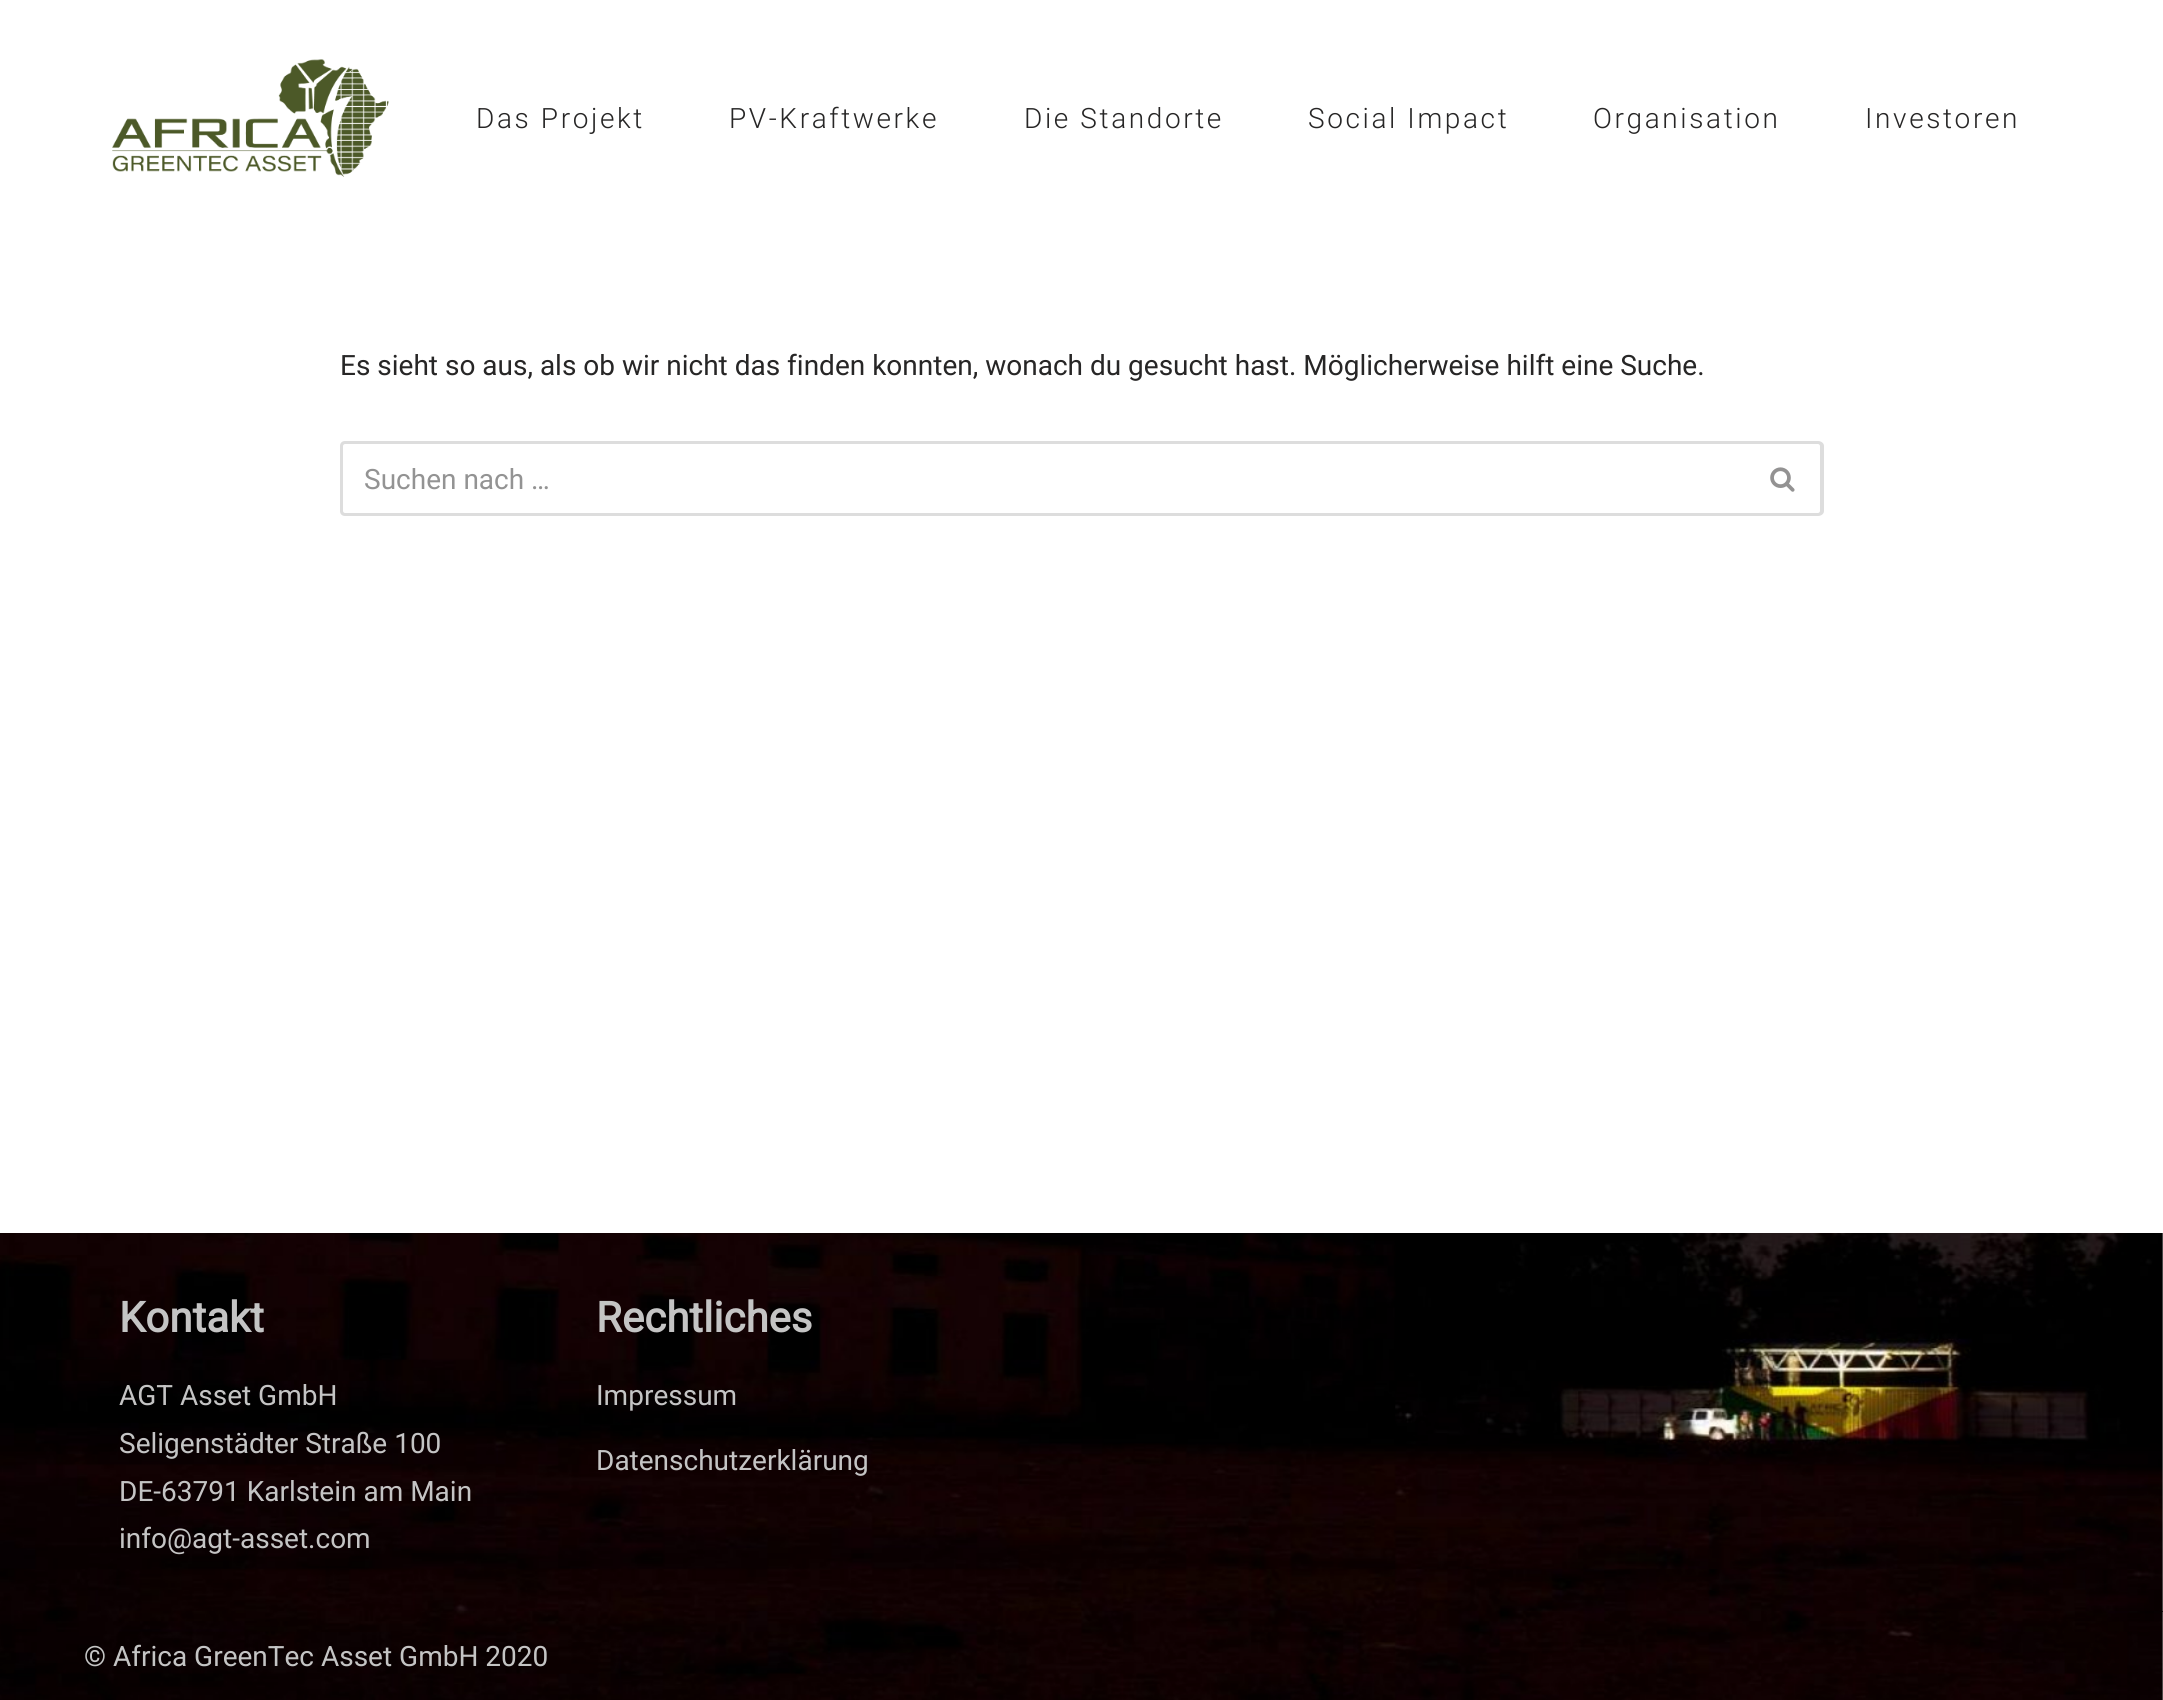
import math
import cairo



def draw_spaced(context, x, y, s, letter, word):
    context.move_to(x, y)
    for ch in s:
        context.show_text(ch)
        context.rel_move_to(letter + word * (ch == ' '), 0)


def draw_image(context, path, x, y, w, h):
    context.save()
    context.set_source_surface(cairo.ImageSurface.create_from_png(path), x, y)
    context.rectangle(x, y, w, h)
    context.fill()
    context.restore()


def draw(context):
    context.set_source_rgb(1, 1, 1)
    context.paint()
    draw_image(context, "images/1.png", 112, 59, 277, 118)
    context.set_source_rgb(221 / 255, 221 / 255, 221 / 255)
    context.set_fill_rule(cairo.FillRule.EVEN_ODD)
    context.new_path()
    context.move_to(345, 441)
    context.line_to(1745, 441)
    context.line_to(1745, 516)
    context.line_to(345, 516)
    context.curve_to(342, 516, 340, 514, 340, 511)
    context.line_to(340, 446)
    context.curve_to(340, 443, 342, 441, 345, 441)
    context.close_path()
    context.move_to(345, 444)
    context.line_to(1745, 444)
    context.line_to(1745, 513)
    context.line_to(345, 513)
    context.curve_to(344, 513, 343, 512, 343, 511)
    context.line_to(343, 446)
    context.curve_to(343, 445, 344, 444, 345, 444)
    context.close_path()
    context.fill()
    context.new_path()
    context.move_to(1745, 441)
    context.line_to(1818, 441)
    context.curve_to(1821, 441, 1824, 443, 1824, 446)
    context.line_to(1824, 511)
    context.curve_to(1824, 514, 1821, 516, 1818, 516)
    context.line_to(1745, 516)
    context.close_path()
    context.move_to(1745, 444)
    context.line_to(1818, 444)
    context.curve_to(1819, 444, 1820, 445, 1820, 446)
    context.line_to(1820, 511)
    context.curve_to(1820, 512, 1819, 513, 1818, 513)
    context.line_to(1745, 513)
    context.close_path()
    context.fill()
    draw_image(context, "images/2.png", 1770, 467, 25, 25)
    draw_image(context, "images/3.png", 0, 1233, 2163, 379)
    draw_image(context, "images/4.png", 0, 1611, 2163, 89)
    context.select_font_face("Roboto Light")
    context.set_font_size(28)
    context.set_source_rgb(39 / 255, 38 / 255, 38 / 255)
    draw_spaced(context, 476, 128, "Das Projekt", 2.6, 0)
    draw_spaced(context, 729, 128, "PV-Kraftwerke", 2.6, 0)
    draw_spaced(context, 1024, 128, "Die Standorte", 2.6, 0)
    draw_spaced(context, 1308, 128, "Social Impact", 2.6, 0)
    draw_spaced(context, 1593, 128, "Organisation", 2.6, 0)
    draw_spaced(context, 1865, 128, "Investoren", 2.6, 0)
    context.select_font_face("Roboto")
    context.move_to(340, 375)
    context.show_text("Es sieht so aus, als ob wir nicht das finden konnten, wonach du gesucht hast. Möglicherweise hilft eine Suche.")
    context.set_source_rgb(147 / 255, 147 / 255, 147 / 255)
    context.move_to(364, 489)
    context.show_text("Suchen nach …")
    context.select_font_face("Roboto", cairo.FontSlant.NORMAL, cairo.FontWeight.BOLD)
    context.set_font_size(42)
    context.set_source_rgb(196 / 255, 196 / 255, 196 / 255)
    context.move_to(119, 1332)
    context.show_text("Kontakt")
    context.select_font_face("Roboto")
    context.set_font_size(28)
    context.move_to(119, 1405)
    context.show_text("AGT Asset GmbH")
    context.move_to(119, 1453)
    context.show_text("Seligenstädter Straße 100")
    context.move_to(119, 1501)
    context.show_text("DE-63791 Karlstein am Main")
    context.move_to(119, 1548)
    context.show_text("info@agt-asset.com")
    context.select_font_face("Roboto", cairo.FontSlant.NORMAL, cairo.FontWeight.BOLD)
    context.set_font_size(42)
    context.move_to(596, 1332)
    context.show_text("Rechtliches")
    context.select_font_face("Roboto")
    context.set_font_size(28)
    context.move_to(596, 1405)
    context.show_text("Impressum")
    context.move_to(596, 1470)
    context.show_text("Datenschutzerklärung")
    context.move_to(84, 1666)
    context.show_text("© Africa GreenTec Asset GmbH 2020")


surface = cairo.ImageSurface(cairo.Format.RGB24, 2163, 1700)
context = cairo.Context(surface)
options = cairo.FontOptions()
options.set_hint_metrics(cairo.HintMetrics.OFF)
options.set_hint_style(cairo.HintStyle.NONE)
context.set_font_options(options)
context.set_miter_limit(4)
draw(context)
surface.write_to_png("out.png")
